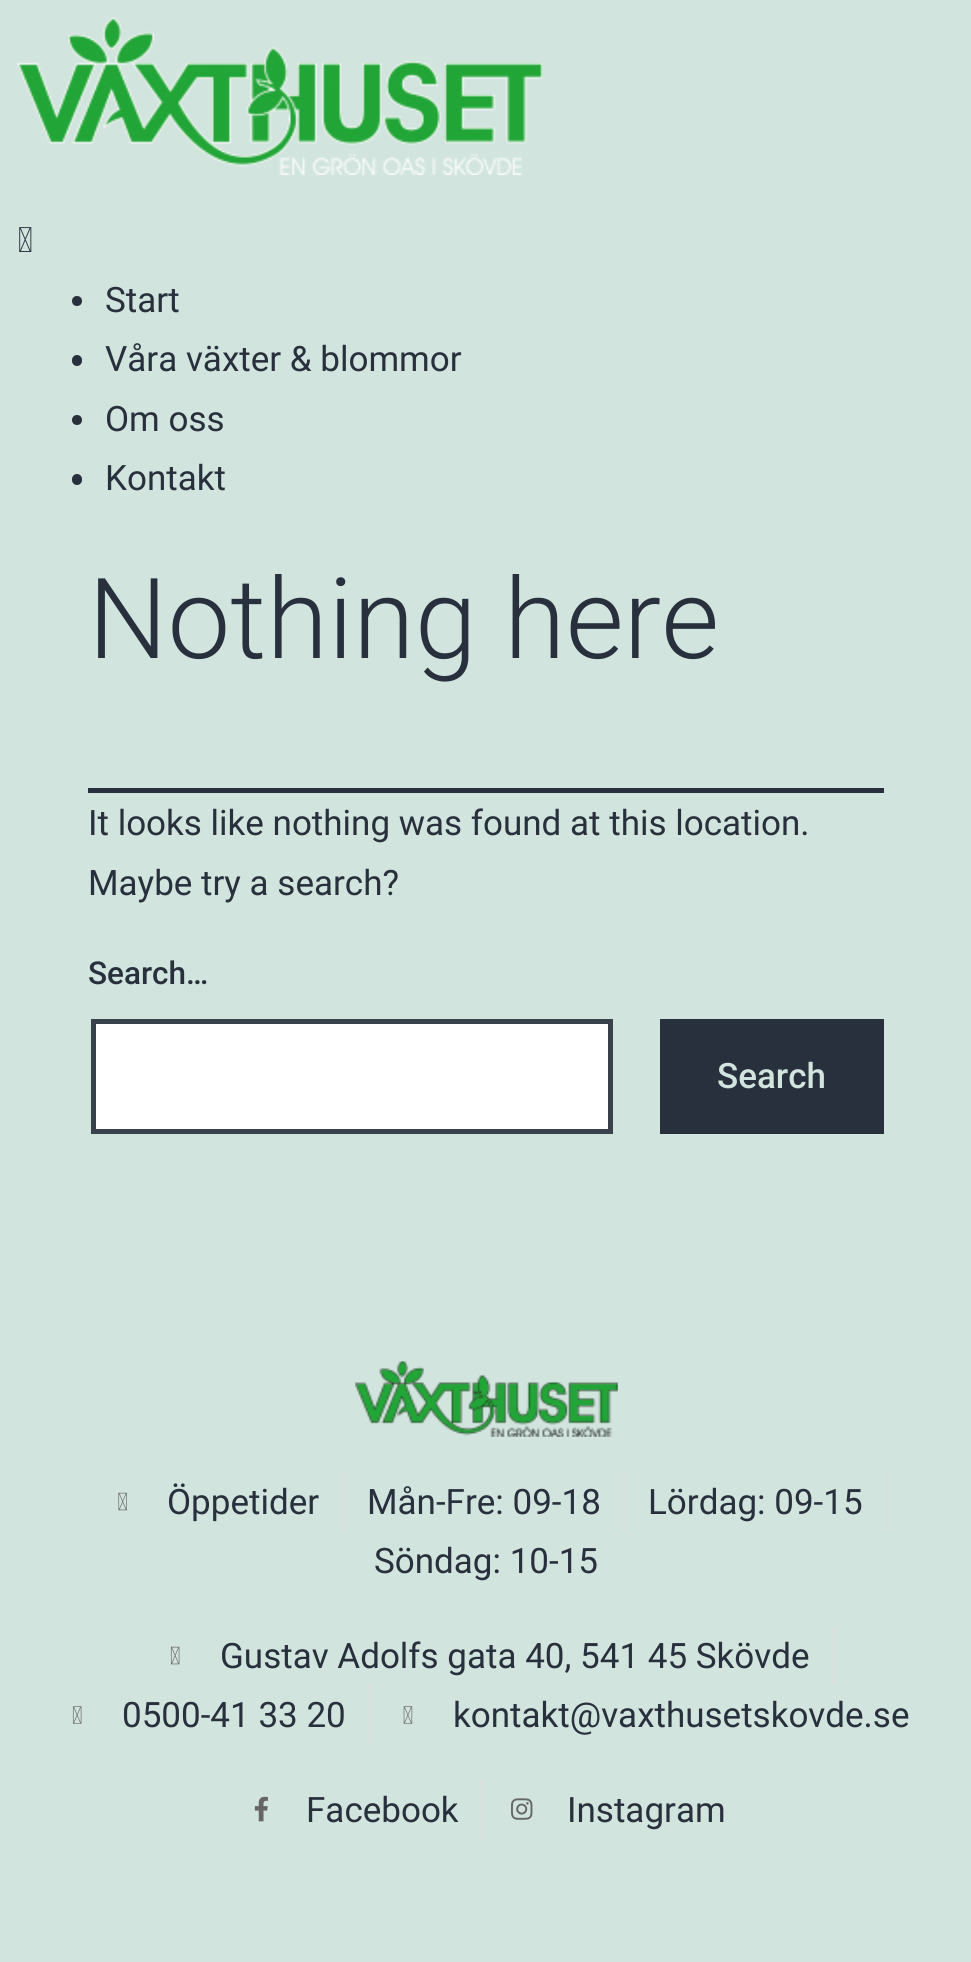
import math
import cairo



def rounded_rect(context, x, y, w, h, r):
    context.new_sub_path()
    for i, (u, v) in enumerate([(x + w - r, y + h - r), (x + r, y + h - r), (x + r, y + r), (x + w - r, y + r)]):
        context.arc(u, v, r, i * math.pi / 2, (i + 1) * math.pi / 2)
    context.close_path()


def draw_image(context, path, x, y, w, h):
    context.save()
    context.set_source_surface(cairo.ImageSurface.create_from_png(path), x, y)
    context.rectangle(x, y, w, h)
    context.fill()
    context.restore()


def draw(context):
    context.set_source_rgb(209 / 255, 228 / 255, 221 / 255)
    context.paint()
    draw_image(context, "images/1.png", 17, 17, 526, 158)
    draw_image(context, "images/2.png", 19, 227, 13, 25)
    context.set_source_rgb(40 / 255, 48 / 255, 61 / 255)
    context.arc(77, 301, 5, 0, 2 * math.pi)
    context.fill()
    rounded_rect(context, 72, 355, 10, 11, 5)
    context.fill()
    context.arc(77, 420, 5, 0, 2 * math.pi)
    context.fill()
    rounded_rect(context, 72, 474, 10, 11, 5)
    context.fill()
    context.rectangle(88, 788, 796, 5)
    context.fill()
    context.set_source_rgb(1, 1, 1)
    context.rectangle(93.5, 1021.5, 517, 110)
    context.fill_preserve()
    context.set_source_rgb(57 / 255, 65 / 255, 77 / 255)
    context.set_line_width(5)
    context.stroke()
    context.set_source_rgb(40 / 255, 48 / 255, 61 / 255)
    context.rectangle(660, 1019, 224, 115)
    context.fill()
    draw_image(context, "images/3.png", 355, 1361, 263, 76)
    draw_image(context, "images/4.png", 118, 1492, 9, 19)
    context.set_source_rgb(221 / 255, 221 / 255, 221 / 255)
    context.rectangle(343, 1472, 2, 59)
    context.fill()
    context.rectangle(623, 1472, 2, 59)
    context.fill()
    context.rectangle(886, 1472, 2, 59)
    context.fill()
    draw_image(context, "images/5.png", 170, 1646, 10, 19)
    context.rectangle(833, 1626, 2, 59)
    context.fill()
    draw_image(context, "images/6.png", 72, 1706, 10, 18)
    context.rectangle(369, 1685, 2, 60)
    context.fill()
    draw_image(context, "images/7.png", 403, 1706, 10, 18)
    draw_image(context, "images/8.png", 254, 1796, 14, 26)
    context.rectangle(481, 1780, 2, 59)
    context.fill()
    draw_image(context, "images/9.png", 511, 1798, 22, 22)
    context.select_font_face("Roboto")
    context.set_font_size(35)
    context.set_source_rgb(40 / 255, 48 / 255, 61 / 255)
    context.move_to(105, 312)
    context.show_text("Start")
    context.move_to(105, 371)
    context.show_text("Våra växter & blommor")
    context.move_to(105, 431)
    context.show_text("Om oss")
    context.move_to(105, 490)
    context.show_text("Kontakt")
    context.select_font_face("Roboto Light")
    context.set_font_size(112)
    context.move_to(88, 658)
    context.show_text("Nothing here")
    context.select_font_face("Roboto")
    context.set_font_size(35)
    context.move_to(88, 835)
    context.show_text("It looks like nothing was found at this location.")
    context.move_to(88, 895)
    context.show_text("Maybe try a search?")
    context.select_font_face("Roboto Medium")
    context.set_font_size(31.5)
    context.move_to(88, 984)
    context.show_text("Search…")
    context.set_font_size(35)
    context.set_source_rgb(209 / 255, 228 / 255, 221 / 255)
    context.move_to(717, 1088)
    context.show_text("Search")
    context.select_font_face("Roboto")
    context.set_source_rgb(40 / 255, 48 / 255, 61 / 255)
    context.move_to(167, 1514)
    context.show_text("Öppetider")
    context.move_to(367, 1514)
    context.show_text("Mån-Fre: 09-18")
    context.move_to(648, 1514)
    context.show_text("Lördag: 09-15")
    context.move_to(374, 1573)
    context.show_text("Söndag: 10-15")
    context.move_to(220, 1668)
    context.show_text("Gustav Adolfs gata 40, 541 45 Skövde")
    context.move_to(122, 1727)
    context.show_text("0500-41 33 20")
    context.move_to(453, 1727)
    context.show_text("kontakt@vaxthusetskovde.se")
    context.move_to(306, 1822)
    context.show_text("Facebook")
    context.move_to(567, 1822)
    context.show_text("Instagram")


surface = cairo.ImageSurface(cairo.Format.RGB24, 971, 1962)
context = cairo.Context(surface)
options = cairo.FontOptions()
options.set_hint_metrics(cairo.HintMetrics.OFF)
options.set_hint_style(cairo.HintStyle.NONE)
context.set_font_options(options)
context.set_miter_limit(4)
draw(context)
surface.write_to_png("out.png")
